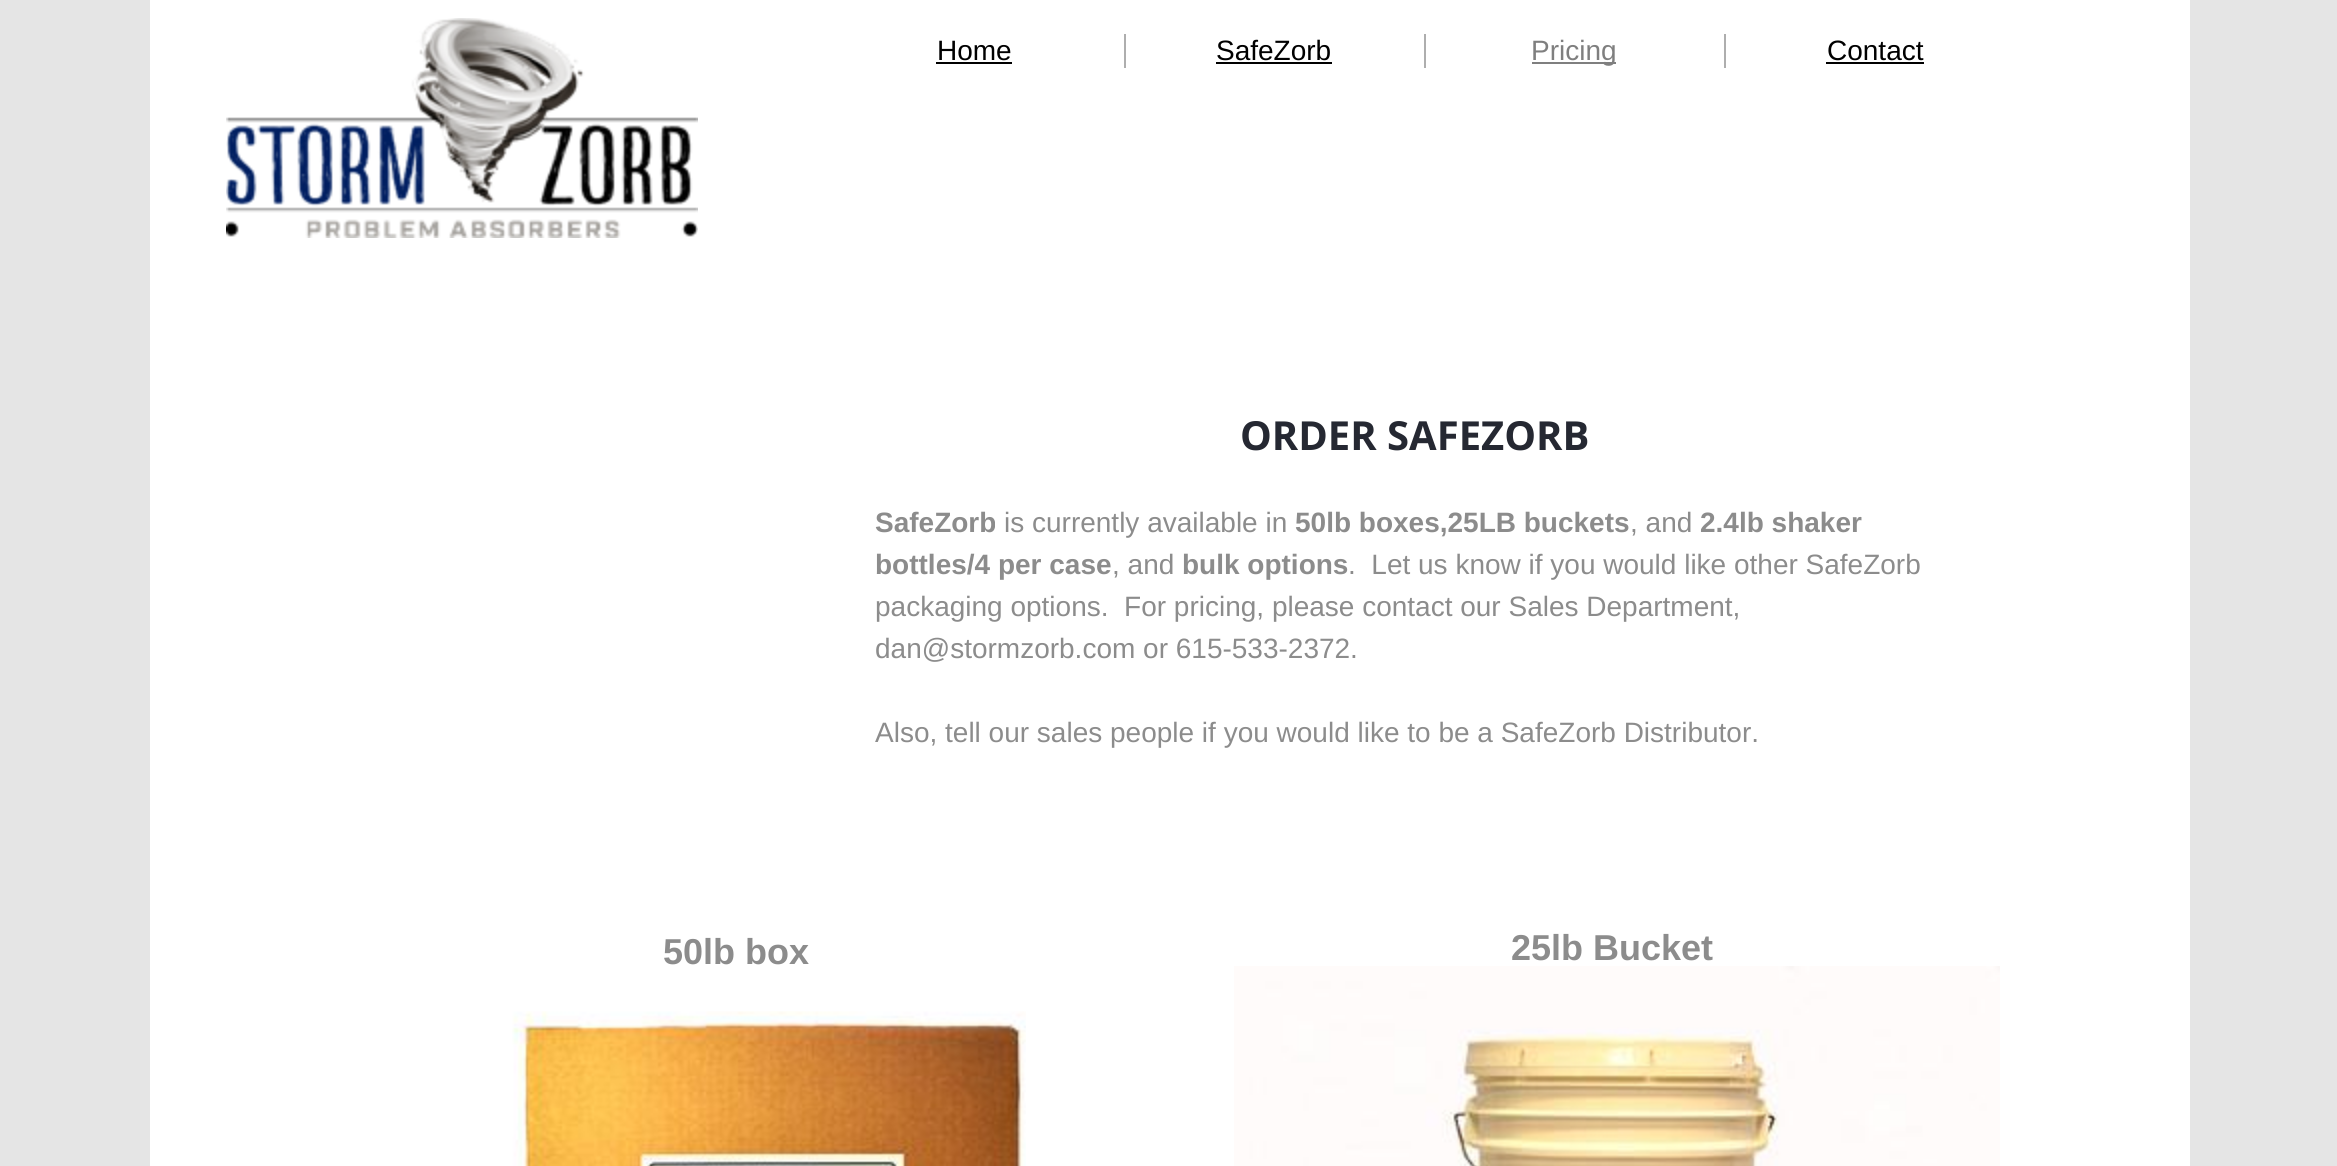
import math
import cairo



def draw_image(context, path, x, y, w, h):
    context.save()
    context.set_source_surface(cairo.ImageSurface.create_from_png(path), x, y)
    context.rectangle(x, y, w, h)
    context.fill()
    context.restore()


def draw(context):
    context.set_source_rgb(229 / 255, 229 / 255, 229 / 255)
    context.paint()
    context.set_source_rgb(1, 1, 1)
    context.rectangle(150, 0, 2040, 1166)
    context.fill()
    draw_image(context, "images/1.png", 226, 18, 472, 220)
    context.set_source_rgb(174 / 255, 174 / 255, 174 / 255)
    context.rectangle(1124, 34, 2, 34)
    context.fill()
    context.set_source_rgb(0, 0, 0)
    context.rectangle(936, 62, 76, 2)
    context.fill()
    context.set_source_rgb(174 / 255, 174 / 255, 174 / 255)
    context.rectangle(1424, 34, 2, 34)
    context.fill()
    context.set_source_rgb(0, 0, 0)
    context.rectangle(1216, 62, 116, 2)
    context.fill()
    context.set_source_rgb(174 / 255, 174 / 255, 174 / 255)
    context.rectangle(1724, 34, 2, 34)
    context.fill()
    context.set_source_rgb(127 / 255, 127 / 255, 127 / 255)
    context.rectangle(1532, 62, 84, 2)
    context.fill()
    context.set_source_rgb(0, 0, 0)
    context.rectangle(1826, 62, 98, 2)
    context.fill()
    draw_image(context, "images/2.png", 512, 1011, 514, 155)
    draw_image(context, "images/3.png", 1234, 966, 766, 200)
    context.select_font_face("Liberation Sans")
    context.set_font_size(28)
    context.move_to(937, 60)
    context.show_text("Home")
    context.move_to(1216, 60)
    context.show_text("SafeZorb")
    context.set_source_rgb(127 / 255, 127 / 255, 127 / 255)
    context.move_to(1531, 60)
    context.show_text("Pricing")
    context.set_source_rgb(0, 0, 0)
    context.move_to(1827, 60)
    context.show_text("Contact")
    context.select_font_face("Open Sans", cairo.FontSlant.NORMAL, cairo.FontWeight.BOLD)
    context.set_font_size(40)
    context.set_source_rgb(37 / 255, 40 / 255, 50 / 255)
    context.move_to(1240, 450)
    context.show_text("ORDER SAFEZORB")
    context.select_font_face("Liberation Sans", cairo.FontSlant.NORMAL, cairo.FontWeight.BOLD)
    context.set_font_size(28)
    context.set_source_rgb(140 / 255, 140 / 255, 140 / 255)
    context.move_to(875, 532)
    context.show_text("SafeZorb")
    context.select_font_face("Liberation Sans")
    context.move_to(1004, 532)
    context.show_text("is currently available in")
    context.select_font_face("Liberation Sans", cairo.FontSlant.NORMAL, cairo.FontWeight.BOLD)
    context.move_to(1295, 532)
    context.show_text("50lb boxes,25LB buckets")
    context.select_font_face("Liberation Sans")
    context.move_to(1630, 532)
    context.show_text(", and")
    context.select_font_face("Liberation Sans", cairo.FontSlant.NORMAL, cairo.FontWeight.BOLD)
    context.move_to(1700, 532)
    context.show_text("2.4lb shaker")
    context.move_to(875, 574)
    context.show_text("bottles/4 per case")
    context.select_font_face("Liberation Sans")
    context.move_to(1112, 574)
    context.show_text(", and")
    context.select_font_face("Liberation Sans", cairo.FontSlant.NORMAL, cairo.FontWeight.BOLD)
    context.move_to(1182, 574)
    context.show_text("bulk options")
    context.select_font_face("Liberation Sans")
    context.move_to(1348, 574)
    context.show_text(".  Let us know if you would like other SafeZorb")
    context.move_to(875, 616)
    context.show_text("packaging options.  For pricing, please contact our Sales Department,")
    context.move_to(875, 658)
    context.show_text("dan@stormzorb.com or 615-533-2372.")
    context.move_to(875, 742)
    context.show_text("Also, tell our sales people if you would like to be a SafeZorb Distributor.")
    context.select_font_face("Liberation Sans", cairo.FontSlant.NORMAL, cairo.FontWeight.BOLD)
    context.set_font_size(36)
    context.move_to(663, 964)
    context.show_text("50lb box")
    context.move_to(1511, 960)
    context.show_text("25lb Bucket")


surface = cairo.ImageSurface(cairo.Format.RGB24, 2337, 1166)
context = cairo.Context(surface)
options = cairo.FontOptions()
options.set_hint_metrics(cairo.HintMetrics.OFF)
options.set_hint_style(cairo.HintStyle.NONE)
context.set_font_options(options)
context.set_miter_limit(4)
draw(context)
surface.write_to_png("out.png")
